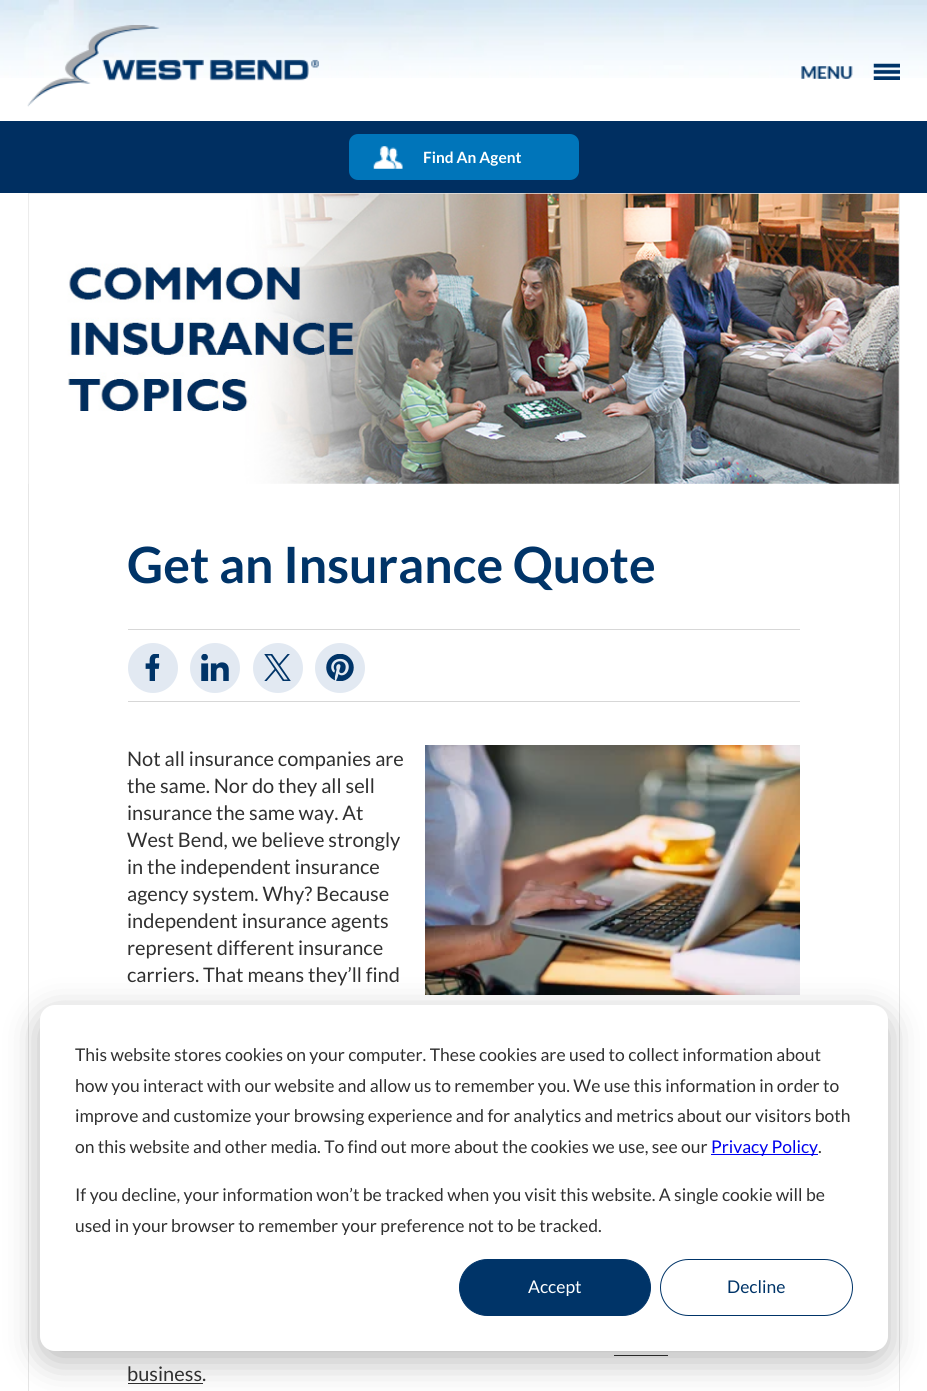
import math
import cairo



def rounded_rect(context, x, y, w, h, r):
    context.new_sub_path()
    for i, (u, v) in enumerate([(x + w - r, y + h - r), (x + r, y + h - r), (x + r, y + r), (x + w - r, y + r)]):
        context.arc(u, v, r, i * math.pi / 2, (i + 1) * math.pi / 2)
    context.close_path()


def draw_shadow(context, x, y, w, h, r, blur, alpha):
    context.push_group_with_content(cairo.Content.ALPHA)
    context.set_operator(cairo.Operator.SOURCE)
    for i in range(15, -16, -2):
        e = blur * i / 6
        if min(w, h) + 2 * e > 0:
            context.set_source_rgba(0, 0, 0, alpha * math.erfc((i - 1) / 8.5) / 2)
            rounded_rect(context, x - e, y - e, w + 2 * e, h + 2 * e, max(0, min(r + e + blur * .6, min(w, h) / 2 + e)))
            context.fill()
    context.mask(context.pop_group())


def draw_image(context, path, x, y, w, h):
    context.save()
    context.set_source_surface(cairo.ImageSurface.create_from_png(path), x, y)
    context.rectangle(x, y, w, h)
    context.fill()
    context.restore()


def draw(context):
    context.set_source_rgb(1, 1, 1)
    context.paint()
    draw_image(context, "images/1.png", 0, 0, 927, 78)
    draw_image(context, "images/2.png", 27, 25, 292, 82)
    draw_image(context, "images/3.png", 801, 63, 99, 17)
    context.set_source_rgb(0, 47 / 255, 97 / 255)
    context.rectangle(0, 121, 927, 72)
    context.fill()
    context.set_source_rgb(0, 117 / 255, 186 / 255)
    rounded_rect(context, 349, 134, 230, 46, 9)
    context.fill()
    draw_image(context, "images/4.png", 373, 146, 30, 23)
    context.rectangle(28.5, 193.5, 871, 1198)
    context.set_source_rgb(230 / 255, 230 / 255, 230 / 255)
    context.set_line_width(1)
    context.stroke()
    draw_image(context, "images/5.png", 28, 193, 871, 291)
    context.set_source_rgb(215 / 255, 215 / 255, 215 / 255)
    context.rectangle(128, 629, 672, 1)
    context.fill()
    context.rectangle(128, 701, 672, 1)
    context.fill()
    context.set_source_rgb(226 / 255, 233 / 255, 242 / 255)
    context.arc(153, 668, 25, 0, 2 * math.pi)
    context.fill()
    draw_image(context, "images/6.png", 145, 654, 15, 27)
    context.arc(215, 668, 25, 0, 2 * math.pi)
    context.fill()
    draw_image(context, "images/7.png", 201, 654, 28, 27)
    context.arc(278, 668, 25, 0, 2 * math.pi)
    context.fill()
    draw_image(context, "images/8.png", 264, 654, 27, 27)
    context.arc(340, 668, 25, 0, 2 * math.pi)
    context.fill()
    draw_image(context, "images/9.png", 326, 654, 28, 27)
    draw_image(context, "images/10.png", 425, 745, 375, 250)
    context.set_source_rgb(48 / 255, 48 / 255, 48 / 255)
    context.rectangle(614, 1355, 54, 1)
    context.fill()
    context.rectangle(128, 1383, 75, 1)
    context.fill()
    context.set_source_rgb(0, 0, 0)
    draw_shadow(context, 40, 1015, 848, 346, 15, 17.5, 0.28)
    context.set_source_rgb(1, 1, 1)
    rounded_rect(context, 40, 1005, 848, 346, 15)
    context.fill()
    context.set_source_rgb(0, 0, 238 / 255)
    context.rectangle(711, 1154, 107, 1)
    context.fill()
    context.set_source_rgb(0, 52 / 255, 104 / 255)
    rounded_rect(context, 459.5, 1259.5, 191, 56, 28)
    context.fill_preserve()
    context.stroke()
    rounded_rect(context, 660.5, 1259.5, 192, 56, 28)
    context.stroke()
    context.select_font_face("Lato", cairo.FontSlant.NORMAL, cairo.FontWeight.BOLD)
    context.set_font_size(15.5)
    context.set_source_rgb(1, 1, 1)
    context.move_to(423, 163)
    context.show_text("Find An Agent")
    context.set_font_size(50)
    context.set_source_rgb(0, 52 / 255, 104 / 255)
    context.move_to(127, 583)
    context.show_text("Get an Insurance Quote")
    context.select_font_face("Lato")
    context.set_font_size(20)
    context.set_source_rgb(48 / 255, 48 / 255, 48 / 255)
    context.move_to(127, 766)
    context.show_text("Not all insurance companies are")
    context.move_to(127, 793)
    context.show_text("the same. Nor do they all sell")
    context.move_to(127, 820)
    context.show_text("insurance the same way. At")
    context.move_to(127, 847)
    context.show_text("West Bend, we believe strongly")
    context.move_to(127, 874)
    context.show_text("in the independent insurance")
    context.move_to(127, 901)
    context.show_text("agency system. Why? Because")
    context.move_to(127, 928)
    context.show_text("independent insurance agents")
    context.move_to(127, 955)
    context.show_text("represent different insurance")
    context.move_to(127, 982)
    context.show_text("carriers. That means they’ll find")
    context.move_to(127, 1381)
    context.show_text("business.")
    context.set_font_size(17.5)
    context.move_to(75, 1061)
    context.show_text("This website stores cookies on your computer. These cookies are used to collect information about")
    context.move_to(75, 1092)
    context.show_text("how you interact with our website and allow us to remember you. We use this information in order to")
    context.move_to(75, 1122)
    context.show_text("improve and customize your browsing experience and for analytics and metrics about our visitors both")
    context.move_to(75, 1153)
    context.show_text("on this website and other media. To find out more about the cookies we use, see our")
    context.set_source_rgb(0, 0, 238 / 255)
    context.move_to(711, 1153)
    context.show_text("Privacy Policy")
    context.set_source_rgb(48 / 255, 48 / 255, 48 / 255)
    context.move_to(818, 1153)
    context.show_text(".")
    context.move_to(75, 1201)
    context.show_text("If you decline, your information won’t be tracked when you visit this website. A single cookie will be")
    context.move_to(75, 1232)
    context.show_text("used in your browser to remember your preference not to be tracked.")
    context.set_source_rgb(1, 1, 1)
    context.move_to(528, 1293)
    context.show_text("Accept")
    context.set_source_rgb(0, 52 / 255, 104 / 255)
    context.move_to(727, 1293)
    context.show_text("Decline")


surface = cairo.ImageSurface(cairo.Format.RGB24, 927, 1391)
context = cairo.Context(surface)
options = cairo.FontOptions()
options.set_hint_metrics(cairo.HintMetrics.OFF)
options.set_hint_style(cairo.HintStyle.NONE)
context.set_font_options(options)
context.set_miter_limit(4)
draw(context)
surface.write_to_png("out.png")
